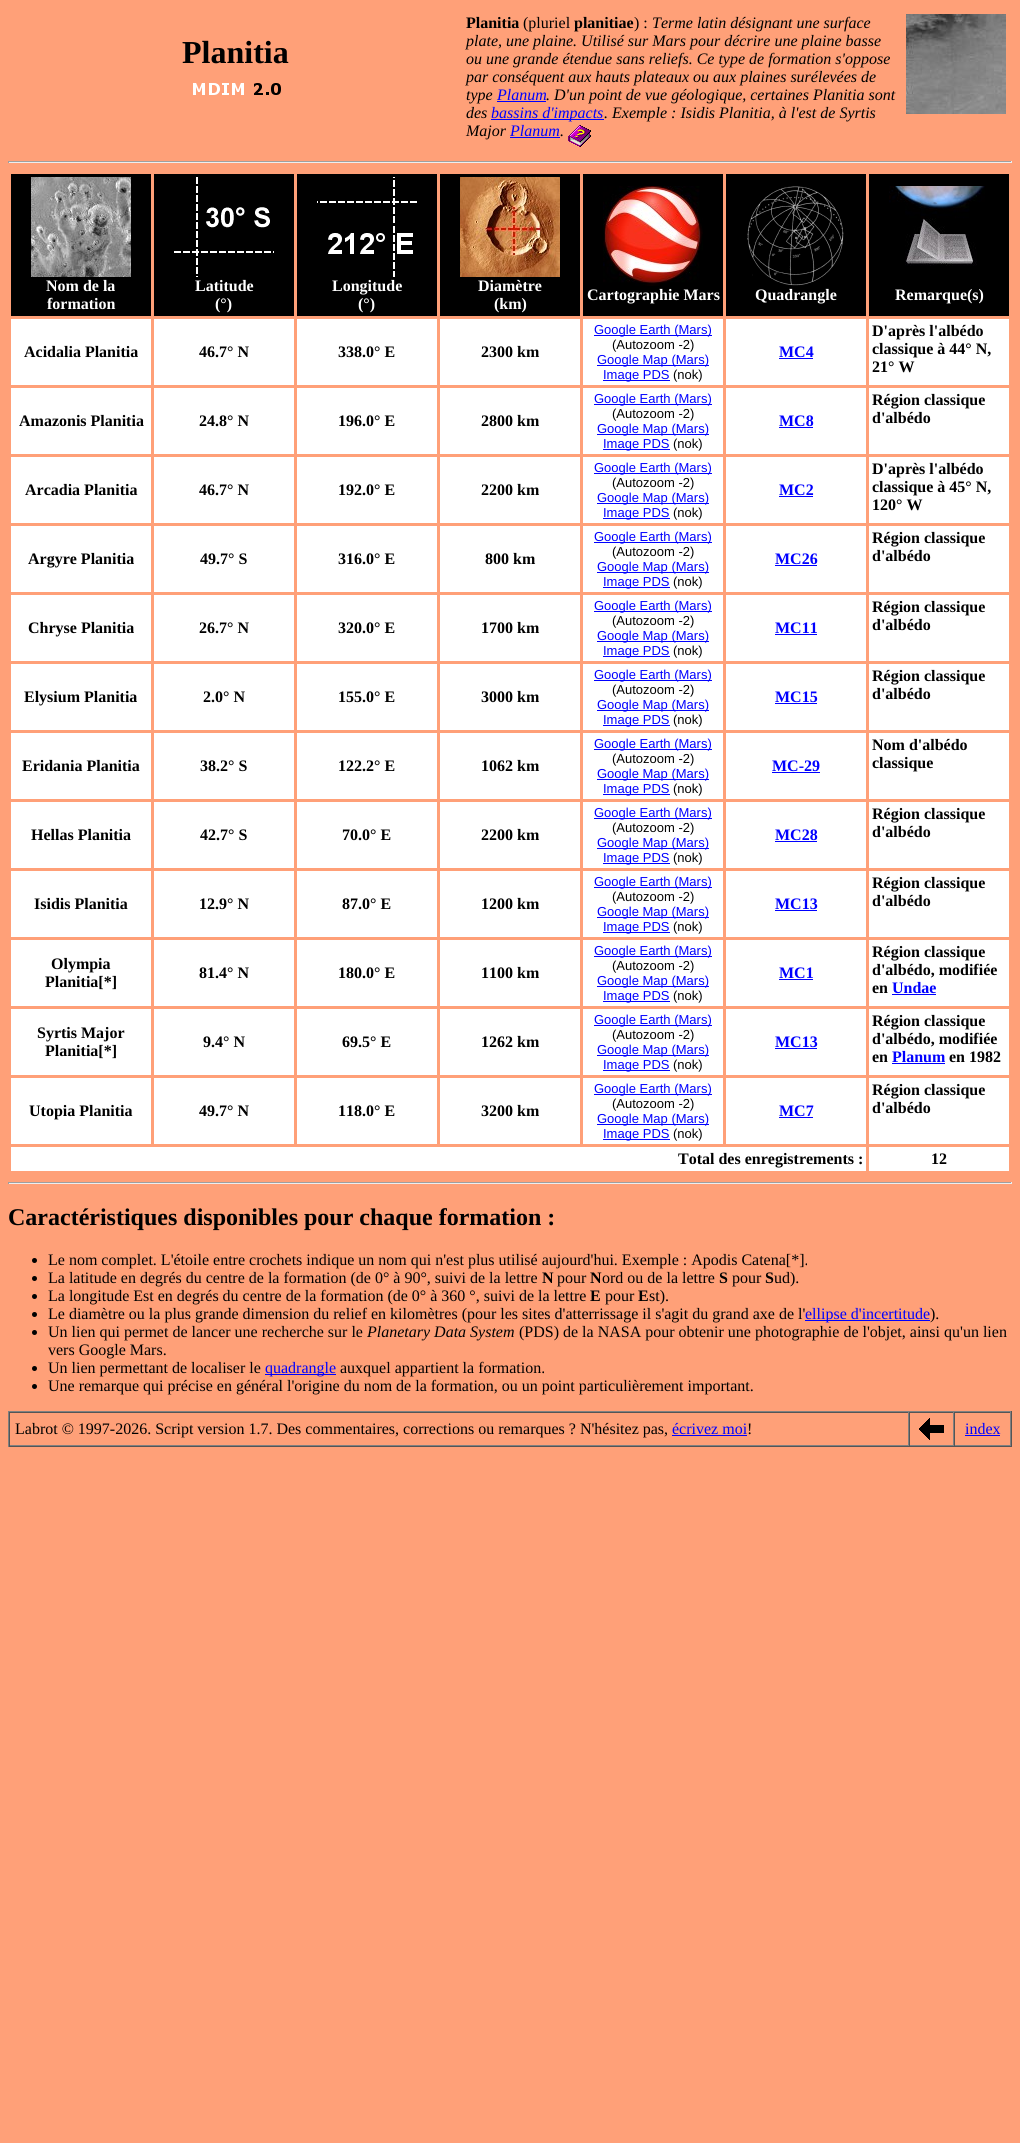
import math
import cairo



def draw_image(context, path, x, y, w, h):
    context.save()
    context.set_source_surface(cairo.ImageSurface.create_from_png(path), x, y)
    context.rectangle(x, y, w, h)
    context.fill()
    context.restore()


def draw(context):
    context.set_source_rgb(1, 160 / 255, 120 / 255)
    context.paint()
    draw_image(context, "images/1.png", 193, 83, 88, 12)
    context.set_source_rgb(0, 0, 1)
    context.rectangle(497, 101, 49, 1)
    context.fill()
    context.rectangle(491, 119, 113, 1)
    context.fill()
    context.rectangle(510, 137, 50, 1)
    context.fill()
    draw_image(context, "images/2.png", 568, 125, 23, 22)
    draw_image(context, "images/3.png", 906, 14, 100, 100)
    context.set_source_rgb(159 / 255, 159 / 255, 159 / 255)
    context.rectangle(8, 161, 1004, 1)
    context.fill()
    context.set_source_rgb(238 / 255, 238 / 255, 238 / 255)
    context.rectangle(1011, 161, 1, 2)
    context.fill()
    context.rectangle(8, 162, 1004, 1)
    context.fill()
    context.set_source_rgb(159 / 255, 159 / 255, 159 / 255)
    context.rectangle(8, 161, 1, 2)
    context.fill()
    context.set_source_rgb(0, 0, 0)
    context.rectangle(11, 174, 140, 142)
    context.fill()
    draw_image(context, "images/4.png", 31, 177, 100, 100)
    context.rectangle(154, 174, 140, 142)
    context.fill()
    draw_image(context, "images/5.png", 174, 177, 100, 100)
    context.rectangle(297, 174, 140, 142)
    context.fill()
    draw_image(context, "images/6.png", 317, 177, 100, 100)
    context.rectangle(440, 174, 140, 142)
    context.fill()
    draw_image(context, "images/7.png", 460, 177, 100, 100)
    context.rectangle(583, 174, 140, 142)
    context.fill()
    draw_image(context, "images/8.png", 603, 186, 100, 100)
    context.rectangle(726, 174, 140, 142)
    context.fill()
    draw_image(context, "images/9.png", 747, 186, 97, 100)
    context.rectangle(869, 174, 140, 142)
    context.fill()
    draw_image(context, "images/10.png", 889, 186, 96, 80)
    context.set_source_rgb(1, 1, 1)
    context.rectangle(11, 319, 140, 66)
    context.fill()
    context.rectangle(154, 319, 140, 66)
    context.fill()
    context.rectangle(297, 319, 140, 66)
    context.fill()
    context.rectangle(440, 319, 140, 66)
    context.fill()
    context.rectangle(583, 319, 140, 66)
    context.fill()
    context.set_source_rgb(0, 0, 1)
    context.rectangle(594, 335, 118, 1)
    context.fill()
    context.rectangle(597, 365, 112, 1)
    context.fill()
    context.rectangle(603, 380, 67, 1)
    context.fill()
    context.set_source_rgb(1, 1, 1)
    context.rectangle(726, 319, 140, 66)
    context.fill()
    context.set_source_rgb(0, 0, 1)
    context.rectangle(779, 358, 34, 1)
    context.fill()
    context.set_source_rgb(1, 1, 1)
    context.rectangle(869, 319, 140, 66)
    context.fill()
    context.rectangle(11, 388, 140, 66)
    context.fill()
    context.rectangle(154, 388, 140, 66)
    context.fill()
    context.rectangle(297, 388, 140, 66)
    context.fill()
    context.rectangle(440, 388, 140, 66)
    context.fill()
    context.rectangle(583, 388, 140, 66)
    context.fill()
    context.set_source_rgb(0, 0, 1)
    context.rectangle(594, 404, 118, 1)
    context.fill()
    context.rectangle(597, 434, 112, 1)
    context.fill()
    context.rectangle(603, 449, 67, 1)
    context.fill()
    context.set_source_rgb(1, 1, 1)
    context.rectangle(726, 388, 140, 66)
    context.fill()
    context.set_source_rgb(0, 0, 1)
    context.rectangle(779, 427, 34, 1)
    context.fill()
    context.set_source_rgb(1, 1, 1)
    context.rectangle(869, 388, 140, 66)
    context.fill()
    context.rectangle(11, 457, 140, 66)
    context.fill()
    context.rectangle(154, 457, 140, 66)
    context.fill()
    context.rectangle(297, 457, 140, 66)
    context.fill()
    context.rectangle(440, 457, 140, 66)
    context.fill()
    context.rectangle(583, 457, 140, 66)
    context.fill()
    context.set_source_rgb(0, 0, 1)
    context.rectangle(594, 473, 118, 1)
    context.fill()
    context.rectangle(597, 503, 112, 1)
    context.fill()
    context.rectangle(603, 518, 67, 1)
    context.fill()
    context.set_source_rgb(1, 1, 1)
    context.rectangle(726, 457, 140, 66)
    context.fill()
    context.set_source_rgb(0, 0, 1)
    context.rectangle(779, 496, 34, 1)
    context.fill()
    context.set_source_rgb(1, 1, 1)
    context.rectangle(869, 457, 140, 66)
    context.fill()
    context.rectangle(11, 526, 140, 66)
    context.fill()
    context.rectangle(154, 526, 140, 66)
    context.fill()
    context.rectangle(297, 526, 140, 66)
    context.fill()
    context.rectangle(440, 526, 140, 66)
    context.fill()
    context.rectangle(583, 526, 140, 66)
    context.fill()
    context.set_source_rgb(0, 0, 1)
    context.rectangle(594, 542, 118, 1)
    context.fill()
    context.rectangle(597, 572, 112, 1)
    context.fill()
    context.rectangle(603, 587, 67, 1)
    context.fill()
    context.set_source_rgb(1, 1, 1)
    context.rectangle(726, 526, 140, 66)
    context.fill()
    context.set_source_rgb(0, 0, 1)
    context.rectangle(775, 565, 42, 1)
    context.fill()
    context.set_source_rgb(1, 1, 1)
    context.rectangle(869, 526, 140, 66)
    context.fill()
    context.rectangle(11, 595, 140, 66)
    context.fill()
    context.rectangle(154, 595, 140, 66)
    context.fill()
    context.rectangle(297, 595, 140, 66)
    context.fill()
    context.rectangle(440, 595, 140, 66)
    context.fill()
    context.rectangle(583, 595, 140, 66)
    context.fill()
    context.set_source_rgb(0, 0, 1)
    context.rectangle(594, 611, 118, 1)
    context.fill()
    context.rectangle(597, 641, 112, 1)
    context.fill()
    context.rectangle(603, 656, 67, 1)
    context.fill()
    context.set_source_rgb(1, 1, 1)
    context.rectangle(726, 595, 140, 66)
    context.fill()
    context.set_source_rgb(0, 0, 1)
    context.rectangle(775, 634, 42, 1)
    context.fill()
    context.set_source_rgb(1, 1, 1)
    context.rectangle(869, 595, 140, 66)
    context.fill()
    context.rectangle(11, 664, 140, 66)
    context.fill()
    context.rectangle(154, 664, 140, 66)
    context.fill()
    context.rectangle(297, 664, 140, 66)
    context.fill()
    context.rectangle(440, 664, 140, 66)
    context.fill()
    context.rectangle(583, 664, 140, 66)
    context.fill()
    context.set_source_rgb(0, 0, 1)
    context.rectangle(594, 680, 118, 1)
    context.fill()
    context.rectangle(597, 710, 112, 1)
    context.fill()
    context.rectangle(603, 725, 67, 1)
    context.fill()
    context.set_source_rgb(1, 1, 1)
    context.rectangle(726, 664, 140, 66)
    context.fill()
    context.set_source_rgb(0, 0, 1)
    context.rectangle(775, 703, 42, 1)
    context.fill()
    context.set_source_rgb(1, 1, 1)
    context.rectangle(869, 664, 140, 66)
    context.fill()
    context.rectangle(11, 733, 140, 66)
    context.fill()
    context.rectangle(154, 733, 140, 66)
    context.fill()
    context.rectangle(297, 733, 140, 66)
    context.fill()
    context.rectangle(440, 733, 140, 66)
    context.fill()
    context.rectangle(583, 733, 140, 66)
    context.fill()
    context.set_source_rgb(0, 0, 1)
    context.rectangle(594, 749, 118, 1)
    context.fill()
    context.rectangle(597, 779, 112, 1)
    context.fill()
    context.rectangle(603, 794, 67, 1)
    context.fill()
    context.set_source_rgb(1, 1, 1)
    context.rectangle(726, 733, 140, 66)
    context.fill()
    context.set_source_rgb(0, 0, 1)
    context.rectangle(772, 772, 48, 1)
    context.fill()
    context.set_source_rgb(1, 1, 1)
    context.rectangle(869, 733, 140, 66)
    context.fill()
    context.rectangle(11, 802, 140, 66)
    context.fill()
    context.rectangle(154, 802, 140, 66)
    context.fill()
    context.rectangle(297, 802, 140, 66)
    context.fill()
    context.rectangle(440, 802, 140, 66)
    context.fill()
    context.rectangle(583, 802, 140, 66)
    context.fill()
    context.set_source_rgb(0, 0, 1)
    context.rectangle(594, 818, 118, 1)
    context.fill()
    context.rectangle(597, 848, 112, 1)
    context.fill()
    context.rectangle(603, 863, 67, 1)
    context.fill()
    context.set_source_rgb(1, 1, 1)
    context.rectangle(726, 802, 140, 66)
    context.fill()
    context.set_source_rgb(0, 0, 1)
    context.rectangle(775, 841, 42, 1)
    context.fill()
    context.set_source_rgb(1, 1, 1)
    context.rectangle(869, 802, 140, 66)
    context.fill()
    context.rectangle(11, 871, 140, 66)
    context.fill()
    context.rectangle(154, 871, 140, 66)
    context.fill()
    context.rectangle(297, 871, 140, 66)
    context.fill()
    context.rectangle(440, 871, 140, 66)
    context.fill()
    context.rectangle(583, 871, 140, 66)
    context.fill()
    context.set_source_rgb(0, 0, 1)
    context.rectangle(594, 887, 118, 1)
    context.fill()
    context.rectangle(597, 917, 112, 1)
    context.fill()
    context.rectangle(603, 932, 67, 1)
    context.fill()
    context.set_source_rgb(1, 1, 1)
    context.rectangle(726, 871, 140, 66)
    context.fill()
    context.set_source_rgb(0, 0, 1)
    context.rectangle(775, 910, 42, 1)
    context.fill()
    context.set_source_rgb(1, 1, 1)
    context.rectangle(869, 871, 140, 66)
    context.fill()
    context.rectangle(11, 940, 140, 66)
    context.fill()
    context.rectangle(154, 940, 140, 66)
    context.fill()
    context.rectangle(297, 940, 140, 66)
    context.fill()
    context.rectangle(440, 940, 140, 66)
    context.fill()
    context.rectangle(583, 940, 140, 66)
    context.fill()
    context.set_source_rgb(0, 0, 1)
    context.rectangle(594, 956, 118, 1)
    context.fill()
    context.rectangle(597, 986, 112, 1)
    context.fill()
    context.rectangle(603, 1001, 67, 1)
    context.fill()
    context.set_source_rgb(1, 1, 1)
    context.rectangle(726, 940, 140, 66)
    context.fill()
    context.set_source_rgb(0, 0, 1)
    context.rectangle(779, 979, 34, 1)
    context.fill()
    context.set_source_rgb(1, 1, 1)
    context.rectangle(869, 940, 140, 66)
    context.fill()
    context.set_source_rgb(0, 0, 1)
    context.rectangle(892, 994, 44, 1)
    context.fill()
    context.set_source_rgb(1, 1, 1)
    context.rectangle(11, 1009, 140, 66)
    context.fill()
    context.rectangle(154, 1009, 140, 66)
    context.fill()
    context.rectangle(297, 1009, 140, 66)
    context.fill()
    context.rectangle(440, 1009, 140, 66)
    context.fill()
    context.rectangle(583, 1009, 140, 66)
    context.fill()
    context.set_source_rgb(0, 0, 1)
    context.rectangle(594, 1025, 118, 1)
    context.fill()
    context.rectangle(597, 1055, 112, 1)
    context.fill()
    context.rectangle(603, 1070, 67, 1)
    context.fill()
    context.set_source_rgb(1, 1, 1)
    context.rectangle(726, 1009, 140, 66)
    context.fill()
    context.set_source_rgb(0, 0, 1)
    context.rectangle(775, 1048, 42, 1)
    context.fill()
    context.set_source_rgb(1, 1, 1)
    context.rectangle(869, 1009, 140, 66)
    context.fill()
    context.set_source_rgb(0, 0, 1)
    context.rectangle(892, 1063, 53, 1)
    context.fill()
    context.set_source_rgb(1, 1, 1)
    context.rectangle(11, 1078, 140, 66)
    context.fill()
    context.rectangle(154, 1078, 140, 66)
    context.fill()
    context.rectangle(297, 1078, 140, 66)
    context.fill()
    context.rectangle(440, 1078, 140, 66)
    context.fill()
    context.rectangle(583, 1078, 140, 66)
    context.fill()
    context.set_source_rgb(0, 0, 1)
    context.rectangle(594, 1094, 118, 1)
    context.fill()
    context.rectangle(597, 1124, 112, 1)
    context.fill()
    context.rectangle(603, 1139, 67, 1)
    context.fill()
    context.set_source_rgb(1, 1, 1)
    context.rectangle(726, 1078, 140, 66)
    context.fill()
    context.set_source_rgb(0, 0, 1)
    context.rectangle(779, 1117, 34, 1)
    context.fill()
    context.set_source_rgb(1, 1, 1)
    context.rectangle(869, 1078, 140, 66)
    context.fill()
    context.rectangle(11, 1147, 855, 24)
    context.fill()
    context.rectangle(869, 1147, 140, 24)
    context.fill()
    context.set_source_rgb(159 / 255, 159 / 255, 159 / 255)
    context.rectangle(8, 1182, 1004, 1)
    context.fill()
    context.set_source_rgb(238 / 255, 238 / 255, 238 / 255)
    context.rectangle(1011, 1182, 1, 2)
    context.fill()
    context.rectangle(8, 1183, 1004, 1)
    context.fill()
    context.set_source_rgb(159 / 255, 159 / 255, 159 / 255)
    context.rectangle(8, 1182, 1, 2)
    context.fill()
    context.set_source_rgb(0, 0, 0)
    context.arc(34.5, 1260.5, 2.5, 0, 2 * math.pi)
    context.fill()
    context.arc(34.5, 1278.5, 2.5, 0, 2 * math.pi)
    context.fill()
    context.arc(34.5, 1296.5, 2.5, 0, 2 * math.pi)
    context.fill()
    context.arc(34.5, 1314.5, 2.5, 0, 2 * math.pi)
    context.fill()
    context.set_source_rgb(0, 0, 1)
    context.rectangle(805, 1320, 125, 1)
    context.fill()
    context.set_source_rgb(0, 0, 0)
    context.arc(34.5, 1332.5, 2.5, 0, 2 * math.pi)
    context.fill()
    context.arc(34.5, 1368.5, 2.5, 0, 2 * math.pi)
    context.fill()
    context.set_source_rgb(0, 0, 1)
    context.rectangle(265, 1374, 71, 1)
    context.fill()
    context.set_source_rgb(0, 0, 0)
    context.arc(34.5, 1386.5, 2.5, 0, 2 * math.pi)
    context.fill()
    context.set_source_rgb(128 / 255, 128 / 255, 128 / 255)
    context.rectangle(8, 1411, 1004, 1)
    context.fill()
    context.set_source_rgb(85 / 255, 85 / 255, 85 / 255)
    context.rectangle(1011, 1411, 1, 36)
    context.fill()
    context.rectangle(8, 1446, 1004, 1)
    context.fill()
    context.set_source_rgb(128 / 255, 128 / 255, 128 / 255)
    context.rectangle(8, 1411, 1, 36)
    context.fill()
    context.set_source_rgb(85 / 255, 85 / 255, 85 / 255)
    context.rectangle(9, 1412, 1002, 1)
    context.fill()
    context.set_source_rgb(128 / 255, 128 / 255, 128 / 255)
    context.rectangle(908, 1412, 1, 34)
    context.fill()
    context.rectangle(9, 1445, 900, 1)
    context.fill()
    context.set_source_rgb(85 / 255, 85 / 255, 85 / 255)
    context.rectangle(9, 1412, 1, 34)
    context.fill()
    context.set_source_rgb(0, 0, 1)
    context.rectangle(672, 1435, 75, 1)
    context.fill()
    context.set_source_rgb(128 / 255, 128 / 255, 128 / 255)
    context.rectangle(953, 1412, 1, 34)
    context.fill()
    context.rectangle(909, 1445, 45, 1)
    context.fill()
    context.set_source_rgb(85 / 255, 85 / 255, 85 / 255)
    context.rectangle(909, 1412, 1, 34)
    context.fill()
    draw_image(context, "images/11.png", 919, 1418, 25, 22)
    context.set_source_rgb(128 / 255, 128 / 255, 128 / 255)
    context.rectangle(1010, 1412, 1, 34)
    context.fill()
    context.rectangle(954, 1445, 57, 1)
    context.fill()
    context.set_source_rgb(85 / 255, 85 / 255, 85 / 255)
    context.rectangle(954, 1412, 1, 34)
    context.fill()
    context.set_source_rgb(0, 0, 1)
    context.rectangle(965, 1435, 35, 1)
    context.fill()
    context.select_font_face("Liberation Serif", cairo.FontSlant.NORMAL, cairo.FontWeight.BOLD)
    context.set_font_size(32)
    context.set_source_rgb(0, 0, 0)
    context.move_to(182, 63)
    context.show_text("Planitia")
    context.set_font_size(16)
    context.move_to(466, 28)
    context.show_text("Planitia")
    context.select_font_face("Liberation Serif")
    context.move_to(523, 28)
    context.show_text("(pluriel")
    context.select_font_face("Liberation Serif", cairo.FontSlant.NORMAL, cairo.FontWeight.BOLD)
    context.move_to(574, 28)
    context.show_text("planitiae")
    context.select_font_face("Liberation Serif")
    context.move_to(634, 28)
    context.show_text(") :")
    context.select_font_face("Liberation Serif", cairo.FontSlant.ITALIC)
    context.move_to(652, 28)
    context.show_text("Terme latin désignant une surface")
    context.move_to(466, 46)
    context.show_text("plate, une plaine. Utilisé sur Mars pour décrire une plaine basse")
    context.move_to(466, 64)
    context.show_text("ou une grande étendue sans reliefs. Ce type de formation s'oppose")
    context.move_to(466, 82)
    context.show_text("par conséquent aux hauts plateaux ou aux plaines surélevées de")
    context.move_to(466, 100)
    context.show_text("type")
    context.set_source_rgb(0, 0, 1)
    context.move_to(497, 100)
    context.show_text("Planum")
    context.set_source_rgb(0, 0, 0)
    context.move_to(546, 100)
    context.show_text(". D'un point de vue géologique, certaines Planitia sont")
    context.move_to(466, 118)
    context.show_text("des")
    context.set_source_rgb(0, 0, 1)
    context.move_to(491, 118)
    context.show_text("bassins d'impacts")
    context.set_source_rgb(0, 0, 0)
    context.move_to(604, 118)
    context.show_text(". Exemple : Isidis Planitia, à l'est de Syrtis")
    context.move_to(466, 136)
    context.show_text("Major")
    context.set_source_rgb(0, 0, 1)
    context.move_to(510, 136)
    context.show_text("Planum")
    context.set_source_rgb(0, 0, 0)
    context.move_to(560, 136)
    context.show_text(".")
    context.select_font_face("Liberation Serif", cairo.FontSlant.NORMAL, cairo.FontWeight.BOLD)
    context.set_source_rgb(1, 1, 1)
    context.move_to(46, 291)
    context.show_text("Nom de la")
    context.move_to(47, 309)
    context.show_text("formation")
    context.move_to(195, 291)
    context.show_text("Latitude")
    context.move_to(215, 309)
    context.show_text("(°)")
    context.move_to(332, 291)
    context.show_text("Longitude")
    context.move_to(358, 309)
    context.show_text("(°)")
    context.move_to(478, 291)
    context.show_text("Diamètre")
    context.move_to(494, 309)
    context.show_text("(km)")
    context.move_to(587, 300)
    context.show_text("Cartographie Mars")
    context.move_to(755, 300)
    context.show_text("Quadrangle")
    context.move_to(895, 300)
    context.show_text("Remarque(s)")
    context.set_source_rgb(0, 0, 0)
    context.move_to(24, 357)
    context.show_text("Acidalia Planitia")
    context.move_to(199, 357)
    context.show_text("46.7° N")
    context.move_to(338, 357)
    context.show_text("338.0° E")
    context.move_to(481, 357)
    context.show_text("2300 km")
    context.select_font_face("Liberation Sans")
    context.set_font_size(13)
    context.set_source_rgb(0, 0, 1)
    context.move_to(594, 334)
    context.show_text("Google Earth (Mars)")
    context.set_source_rgb(0, 0, 0)
    context.move_to(612, 349)
    context.show_text("(Autozoom -2)")
    context.set_source_rgb(0, 0, 1)
    context.move_to(597, 364)
    context.show_text("Google Map (Mars)")
    context.move_to(603, 379)
    context.show_text("Image PDS")
    context.set_source_rgb(0, 0, 0)
    context.move_to(673, 379)
    context.show_text("(nok)")
    context.select_font_face("Liberation Serif", cairo.FontSlant.NORMAL, cairo.FontWeight.BOLD)
    context.set_font_size(16)
    context.set_source_rgb(0, 0, 1)
    context.move_to(779, 357)
    context.show_text("MC4")
    context.set_source_rgb(0, 0, 0)
    context.move_to(872, 336)
    context.show_text("D'après l'albédo")
    context.move_to(872, 354)
    context.show_text("classique à 44° N,")
    context.move_to(872, 372)
    context.show_text("21° W")
    context.move_to(19, 426)
    context.show_text("Amazonis Planitia")
    context.move_to(199, 426)
    context.show_text("24.8° N")
    context.move_to(338, 426)
    context.show_text("196.0° E")
    context.move_to(481, 426)
    context.show_text("2800 km")
    context.select_font_face("Liberation Sans")
    context.set_font_size(13)
    context.set_source_rgb(0, 0, 1)
    context.move_to(594, 403)
    context.show_text("Google Earth (Mars)")
    context.set_source_rgb(0, 0, 0)
    context.move_to(612, 418)
    context.show_text("(Autozoom -2)")
    context.set_source_rgb(0, 0, 1)
    context.move_to(597, 433)
    context.show_text("Google Map (Mars)")
    context.move_to(603, 448)
    context.show_text("Image PDS")
    context.set_source_rgb(0, 0, 0)
    context.move_to(673, 448)
    context.show_text("(nok)")
    context.select_font_face("Liberation Serif", cairo.FontSlant.NORMAL, cairo.FontWeight.BOLD)
    context.set_font_size(16)
    context.set_source_rgb(0, 0, 1)
    context.move_to(779, 426)
    context.show_text("MC8")
    context.set_source_rgb(0, 0, 0)
    context.move_to(872, 405)
    context.show_text("Région classique")
    context.move_to(872, 423)
    context.show_text("d'albédo")
    context.move_to(25, 495)
    context.show_text("Arcadia Planitia")
    context.move_to(199, 495)
    context.show_text("46.7° N")
    context.move_to(338, 495)
    context.show_text("192.0° E")
    context.move_to(481, 495)
    context.show_text("2200 km")
    context.select_font_face("Liberation Sans")
    context.set_font_size(13)
    context.set_source_rgb(0, 0, 1)
    context.move_to(594, 472)
    context.show_text("Google Earth (Mars)")
    context.set_source_rgb(0, 0, 0)
    context.move_to(612, 487)
    context.show_text("(Autozoom -2)")
    context.set_source_rgb(0, 0, 1)
    context.move_to(597, 502)
    context.show_text("Google Map (Mars)")
    context.move_to(603, 517)
    context.show_text("Image PDS")
    context.set_source_rgb(0, 0, 0)
    context.move_to(673, 517)
    context.show_text("(nok)")
    context.select_font_face("Liberation Serif", cairo.FontSlant.NORMAL, cairo.FontWeight.BOLD)
    context.set_font_size(16)
    context.set_source_rgb(0, 0, 1)
    context.move_to(779, 495)
    context.show_text("MC2")
    context.set_source_rgb(0, 0, 0)
    context.move_to(872, 474)
    context.show_text("D'après l'albédo")
    context.move_to(872, 492)
    context.show_text("classique à 45° N,")
    context.move_to(872, 510)
    context.show_text("120° W")
    context.move_to(28, 564)
    context.show_text("Argyre Planitia")
    context.move_to(200, 564)
    context.show_text("49.7° S")
    context.move_to(338, 564)
    context.show_text("316.0° E")
    context.move_to(485, 564)
    context.show_text("800 km")
    context.select_font_face("Liberation Sans")
    context.set_font_size(13)
    context.set_source_rgb(0, 0, 1)
    context.move_to(594, 541)
    context.show_text("Google Earth (Mars)")
    context.set_source_rgb(0, 0, 0)
    context.move_to(612, 556)
    context.show_text("(Autozoom -2)")
    context.set_source_rgb(0, 0, 1)
    context.move_to(597, 571)
    context.show_text("Google Map (Mars)")
    context.move_to(603, 586)
    context.show_text("Image PDS")
    context.set_source_rgb(0, 0, 0)
    context.move_to(673, 586)
    context.show_text("(nok)")
    context.select_font_face("Liberation Serif", cairo.FontSlant.NORMAL, cairo.FontWeight.BOLD)
    context.set_font_size(16)
    context.set_source_rgb(0, 0, 1)
    context.move_to(775, 564)
    context.show_text("MC26")
    context.set_source_rgb(0, 0, 0)
    context.move_to(872, 543)
    context.show_text("Région classique")
    context.move_to(872, 561)
    context.show_text("d'albédo")
    context.move_to(28, 633)
    context.show_text("Chryse Planitia")
    context.move_to(199, 633)
    context.show_text("26.7° N")
    context.move_to(338, 633)
    context.show_text("320.0° E")
    context.move_to(481, 633)
    context.show_text("1700 km")
    context.select_font_face("Liberation Sans")
    context.set_font_size(13)
    context.set_source_rgb(0, 0, 1)
    context.move_to(594, 610)
    context.show_text("Google Earth (Mars)")
    context.set_source_rgb(0, 0, 0)
    context.move_to(612, 625)
    context.show_text("(Autozoom -2)")
    context.set_source_rgb(0, 0, 1)
    context.move_to(597, 640)
    context.show_text("Google Map (Mars)")
    context.move_to(603, 655)
    context.show_text("Image PDS")
    context.set_source_rgb(0, 0, 0)
    context.move_to(673, 655)
    context.show_text("(nok)")
    context.select_font_face("Liberation Serif", cairo.FontSlant.NORMAL, cairo.FontWeight.BOLD)
    context.set_font_size(16)
    context.set_source_rgb(0, 0, 1)
    context.move_to(775, 633)
    context.show_text("MC11")
    context.set_source_rgb(0, 0, 0)
    context.move_to(872, 612)
    context.show_text("Région classique")
    context.move_to(872, 630)
    context.show_text("d'albédo")
    context.move_to(24, 702)
    context.show_text("Elysium Planitia")
    context.move_to(203, 702)
    context.show_text("2.0° N")
    context.move_to(338, 702)
    context.show_text("155.0° E")
    context.move_to(481, 702)
    context.show_text("3000 km")
    context.select_font_face("Liberation Sans")
    context.set_font_size(13)
    context.set_source_rgb(0, 0, 1)
    context.move_to(594, 679)
    context.show_text("Google Earth (Mars)")
    context.set_source_rgb(0, 0, 0)
    context.move_to(612, 694)
    context.show_text("(Autozoom -2)")
    context.set_source_rgb(0, 0, 1)
    context.move_to(597, 709)
    context.show_text("Google Map (Mars)")
    context.move_to(603, 724)
    context.show_text("Image PDS")
    context.set_source_rgb(0, 0, 0)
    context.move_to(673, 724)
    context.show_text("(nok)")
    context.select_font_face("Liberation Serif", cairo.FontSlant.NORMAL, cairo.FontWeight.BOLD)
    context.set_font_size(16)
    context.set_source_rgb(0, 0, 1)
    context.move_to(775, 702)
    context.show_text("MC15")
    context.set_source_rgb(0, 0, 0)
    context.move_to(872, 681)
    context.show_text("Région classique")
    context.move_to(872, 699)
    context.show_text("d'albédo")
    context.move_to(22, 771)
    context.show_text("Eridania Planitia")
    context.move_to(200, 771)
    context.show_text("38.2° S")
    context.move_to(338, 771)
    context.show_text("122.2° E")
    context.move_to(481, 771)
    context.show_text("1062 km")
    context.select_font_face("Liberation Sans")
    context.set_font_size(13)
    context.set_source_rgb(0, 0, 1)
    context.move_to(594, 748)
    context.show_text("Google Earth (Mars)")
    context.set_source_rgb(0, 0, 0)
    context.move_to(612, 763)
    context.show_text("(Autozoom -2)")
    context.set_source_rgb(0, 0, 1)
    context.move_to(597, 778)
    context.show_text("Google Map (Mars)")
    context.move_to(603, 793)
    context.show_text("Image PDS")
    context.set_source_rgb(0, 0, 0)
    context.move_to(673, 793)
    context.show_text("(nok)")
    context.select_font_face("Liberation Serif", cairo.FontSlant.NORMAL, cairo.FontWeight.BOLD)
    context.set_font_size(16)
    context.set_source_rgb(0, 0, 1)
    context.move_to(772, 771)
    context.show_text("MC-29")
    context.set_source_rgb(0, 0, 0)
    context.move_to(872, 750)
    context.show_text("Nom d'albédo")
    context.move_to(872, 768)
    context.show_text("classique")
    context.move_to(31, 840)
    context.show_text("Hellas Planitia")
    context.move_to(200, 840)
    context.show_text("42.7° S")
    context.move_to(342, 840)
    context.show_text("70.0° E")
    context.move_to(481, 840)
    context.show_text("2200 km")
    context.select_font_face("Liberation Sans")
    context.set_font_size(13)
    context.set_source_rgb(0, 0, 1)
    context.move_to(594, 817)
    context.show_text("Google Earth (Mars)")
    context.set_source_rgb(0, 0, 0)
    context.move_to(612, 832)
    context.show_text("(Autozoom -2)")
    context.set_source_rgb(0, 0, 1)
    context.move_to(597, 847)
    context.show_text("Google Map (Mars)")
    context.move_to(603, 862)
    context.show_text("Image PDS")
    context.set_source_rgb(0, 0, 0)
    context.move_to(673, 862)
    context.show_text("(nok)")
    context.select_font_face("Liberation Serif", cairo.FontSlant.NORMAL, cairo.FontWeight.BOLD)
    context.set_font_size(16)
    context.set_source_rgb(0, 0, 1)
    context.move_to(775, 840)
    context.show_text("MC28")
    context.set_source_rgb(0, 0, 0)
    context.move_to(872, 819)
    context.show_text("Région classique")
    context.move_to(872, 837)
    context.show_text("d'albédo")
    context.move_to(34, 909)
    context.show_text("Isidis Planitia")
    context.move_to(199, 909)
    context.show_text("12.9° N")
    context.move_to(342, 909)
    context.show_text("87.0° E")
    context.move_to(481, 909)
    context.show_text("1200 km")
    context.select_font_face("Liberation Sans")
    context.set_font_size(13)
    context.set_source_rgb(0, 0, 1)
    context.move_to(594, 886)
    context.show_text("Google Earth (Mars)")
    context.set_source_rgb(0, 0, 0)
    context.move_to(612, 901)
    context.show_text("(Autozoom -2)")
    context.set_source_rgb(0, 0, 1)
    context.move_to(597, 916)
    context.show_text("Google Map (Mars)")
    context.move_to(603, 931)
    context.show_text("Image PDS")
    context.set_source_rgb(0, 0, 0)
    context.move_to(673, 931)
    context.show_text("(nok)")
    context.select_font_face("Liberation Serif", cairo.FontSlant.NORMAL, cairo.FontWeight.BOLD)
    context.set_font_size(16)
    context.set_source_rgb(0, 0, 1)
    context.move_to(775, 909)
    context.show_text("MC13")
    context.set_source_rgb(0, 0, 0)
    context.move_to(872, 888)
    context.show_text("Région classique")
    context.move_to(872, 906)
    context.show_text("d'albédo")
    context.move_to(51, 969)
    context.show_text("Olympia")
    context.move_to(45, 987)
    context.show_text("Planitia[*]")
    context.move_to(199, 978)
    context.show_text("81.4° N")
    context.move_to(338, 978)
    context.show_text("180.0° E")
    context.move_to(481, 978)
    context.show_text("1100 km")
    context.select_font_face("Liberation Sans")
    context.set_font_size(13)
    context.set_source_rgb(0, 0, 1)
    context.move_to(594, 955)
    context.show_text("Google Earth (Mars)")
    context.set_source_rgb(0, 0, 0)
    context.move_to(612, 970)
    context.show_text("(Autozoom -2)")
    context.set_source_rgb(0, 0, 1)
    context.move_to(597, 985)
    context.show_text("Google Map (Mars)")
    context.move_to(603, 1000)
    context.show_text("Image PDS")
    context.set_source_rgb(0, 0, 0)
    context.move_to(673, 1000)
    context.show_text("(nok)")
    context.select_font_face("Liberation Serif", cairo.FontSlant.NORMAL, cairo.FontWeight.BOLD)
    context.set_font_size(16)
    context.set_source_rgb(0, 0, 1)
    context.move_to(779, 978)
    context.show_text("MC1")
    context.set_source_rgb(0, 0, 0)
    context.move_to(872, 957)
    context.show_text("Région classique")
    context.move_to(872, 975)
    context.show_text("d'albédo, modifiée")
    context.move_to(872, 993)
    context.show_text("en")
    context.set_source_rgb(0, 0, 1)
    context.move_to(892, 993)
    context.show_text("Undae")
    context.set_source_rgb(0, 0, 0)
    context.move_to(37, 1038)
    context.show_text("Syrtis Major")
    context.move_to(45, 1056)
    context.show_text("Planitia[*]")
    context.move_to(203, 1047)
    context.show_text("9.4° N")
    context.move_to(342, 1047)
    context.show_text("69.5° E")
    context.move_to(481, 1047)
    context.show_text("1262 km")
    context.select_font_face("Liberation Sans")
    context.set_font_size(13)
    context.set_source_rgb(0, 0, 1)
    context.move_to(594, 1024)
    context.show_text("Google Earth (Mars)")
    context.set_source_rgb(0, 0, 0)
    context.move_to(612, 1039)
    context.show_text("(Autozoom -2)")
    context.set_source_rgb(0, 0, 1)
    context.move_to(597, 1054)
    context.show_text("Google Map (Mars)")
    context.move_to(603, 1069)
    context.show_text("Image PDS")
    context.set_source_rgb(0, 0, 0)
    context.move_to(673, 1069)
    context.show_text("(nok)")
    context.select_font_face("Liberation Serif", cairo.FontSlant.NORMAL, cairo.FontWeight.BOLD)
    context.set_font_size(16)
    context.set_source_rgb(0, 0, 1)
    context.move_to(775, 1047)
    context.show_text("MC13")
    context.set_source_rgb(0, 0, 0)
    context.move_to(872, 1026)
    context.show_text("Région classique")
    context.move_to(872, 1044)
    context.show_text("d'albédo, modifiée")
    context.move_to(872, 1062)
    context.show_text("en")
    context.set_source_rgb(0, 0, 1)
    context.move_to(892, 1062)
    context.show_text("Planum")
    context.set_source_rgb(0, 0, 0)
    context.move_to(949, 1062)
    context.show_text("en 1982")
    context.move_to(29, 1116)
    context.show_text("Utopia Planitia")
    context.move_to(199, 1116)
    context.show_text("49.7° N")
    context.move_to(338, 1116)
    context.show_text("118.0° E")
    context.move_to(481, 1116)
    context.show_text("3200 km")
    context.select_font_face("Liberation Sans")
    context.set_font_size(13)
    context.set_source_rgb(0, 0, 1)
    context.move_to(594, 1093)
    context.show_text("Google Earth (Mars)")
    context.set_source_rgb(0, 0, 0)
    context.move_to(612, 1108)
    context.show_text("(Autozoom -2)")
    context.set_source_rgb(0, 0, 1)
    context.move_to(597, 1123)
    context.show_text("Google Map (Mars)")
    context.move_to(603, 1138)
    context.show_text("Image PDS")
    context.set_source_rgb(0, 0, 0)
    context.move_to(673, 1138)
    context.show_text("(nok)")
    context.select_font_face("Liberation Serif", cairo.FontSlant.NORMAL, cairo.FontWeight.BOLD)
    context.set_font_size(16)
    context.set_source_rgb(0, 0, 1)
    context.move_to(779, 1116)
    context.show_text("MC7")
    context.set_source_rgb(0, 0, 0)
    context.move_to(872, 1095)
    context.show_text("Région classique")
    context.move_to(872, 1113)
    context.show_text("d'albédo")
    context.move_to(678, 1164)
    context.show_text("Total des enregistrements :")
    context.move_to(931, 1164)
    context.show_text("12")
    context.set_font_size(24)
    context.move_to(8, 1225)
    context.show_text("Caractéristiques disponibles pour chaque formation :")
    context.select_font_face("Liberation Serif")
    context.set_font_size(16)
    context.move_to(48, 1265)
    context.show_text("Le nom complet. L'étoile entre crochets indique un nom qui n'est plus utilisé aujourd'hui. Exemple : Apodis Catena[*].")
    context.move_to(48, 1283)
    context.show_text("La latitude en degrés du centre de la formation (de 0° à 90°, suivi de la lettre")
    context.select_font_face("Liberation Serif", cairo.FontSlant.NORMAL, cairo.FontWeight.BOLD)
    context.move_to(542, 1283)
    context.show_text("N")
    context.select_font_face("Liberation Serif")
    context.move_to(557, 1283)
    context.show_text("pour")
    context.select_font_face("Liberation Serif", cairo.FontSlant.NORMAL, cairo.FontWeight.BOLD)
    context.move_to(590, 1283)
    context.show_text("N")
    context.select_font_face("Liberation Serif")
    context.move_to(602, 1283)
    context.show_text("ord ou de la lettre")
    context.select_font_face("Liberation Serif", cairo.FontSlant.NORMAL, cairo.FontWeight.BOLD)
    context.move_to(719, 1283)
    context.show_text("S")
    context.select_font_face("Liberation Serif")
    context.move_to(732, 1283)
    context.show_text("pour")
    context.select_font_face("Liberation Serif", cairo.FontSlant.NORMAL, cairo.FontWeight.BOLD)
    context.move_to(765, 1283)
    context.show_text("S")
    context.select_font_face("Liberation Serif")
    context.move_to(774, 1283)
    context.show_text("ud).")
    context.move_to(48, 1301)
    context.show_text("La longitude Est en degrés du centre de la formation (de 0° à 360 °, suivi de la lettre")
    context.select_font_face("Liberation Serif", cairo.FontSlant.NORMAL, cairo.FontWeight.BOLD)
    context.move_to(590, 1301)
    context.show_text("E")
    context.select_font_face("Liberation Serif")
    context.move_to(605, 1301)
    context.show_text("pour")
    context.select_font_face("Liberation Serif", cairo.FontSlant.NORMAL, cairo.FontWeight.BOLD)
    context.move_to(638, 1301)
    context.show_text("E")
    context.select_font_face("Liberation Serif")
    context.move_to(649, 1301)
    context.show_text("st).")
    context.move_to(48, 1319)
    context.show_text("Le diamètre ou la plus grande dimension du relief en kilomètres (pour les sites d'atterrissage il s'agit du grand axe de l'")
    context.set_source_rgb(0, 0, 1)
    context.move_to(805, 1319)
    context.show_text("ellipse d'incertitude")
    context.set_source_rgb(0, 0, 0)
    context.move_to(930, 1319)
    context.show_text(").")
    context.move_to(48, 1337)
    context.show_text("Un lien qui permet de lancer une recherche sur le")
    context.select_font_face("Liberation Serif", cairo.FontSlant.ITALIC)
    context.move_to(367, 1337)
    context.show_text("Planetary Data System")
    context.select_font_face("Liberation Serif")
    context.move_to(519, 1337)
    context.show_text("(PDS) de la NASA pour obtenir une photographie de l'objet, ainsi qu'un lien")
    context.move_to(48, 1355)
    context.show_text("vers Google Mars.")
    context.move_to(48, 1373)
    context.show_text("Un lien permettant de localiser le")
    context.set_source_rgb(0, 0, 1)
    context.move_to(265, 1373)
    context.show_text("quadrangle")
    context.set_source_rgb(0, 0, 0)
    context.move_to(340, 1373)
    context.show_text("auxquel appartient la formation.")
    context.move_to(48, 1391)
    context.show_text("Une remarque qui précise en général l'origine du nom de la formation, ou un point particulièrement important.")
    context.move_to(15, 1434)
    context.show_text("Labrot © 1997-2026. Script version 1.7. Des commentaires, corrections ou remarques ? N'hésitez pas,")
    context.set_source_rgb(0, 0, 1)
    context.move_to(672, 1434)
    context.show_text("écrivez moi")
    context.set_source_rgb(0, 0, 0)
    context.move_to(747, 1434)
    context.show_text("!")
    context.set_source_rgb(0, 0, 1)
    context.move_to(965, 1434)
    context.show_text("index")


surface = cairo.ImageSurface(cairo.Format.RGB24, 1020, 2143)
context = cairo.Context(surface)
options = cairo.FontOptions()
options.set_hint_metrics(cairo.HintMetrics.OFF)
options.set_hint_style(cairo.HintStyle.NONE)
context.set_font_options(options)
context.set_miter_limit(4)
draw(context)
surface.write_to_png("out.png")
